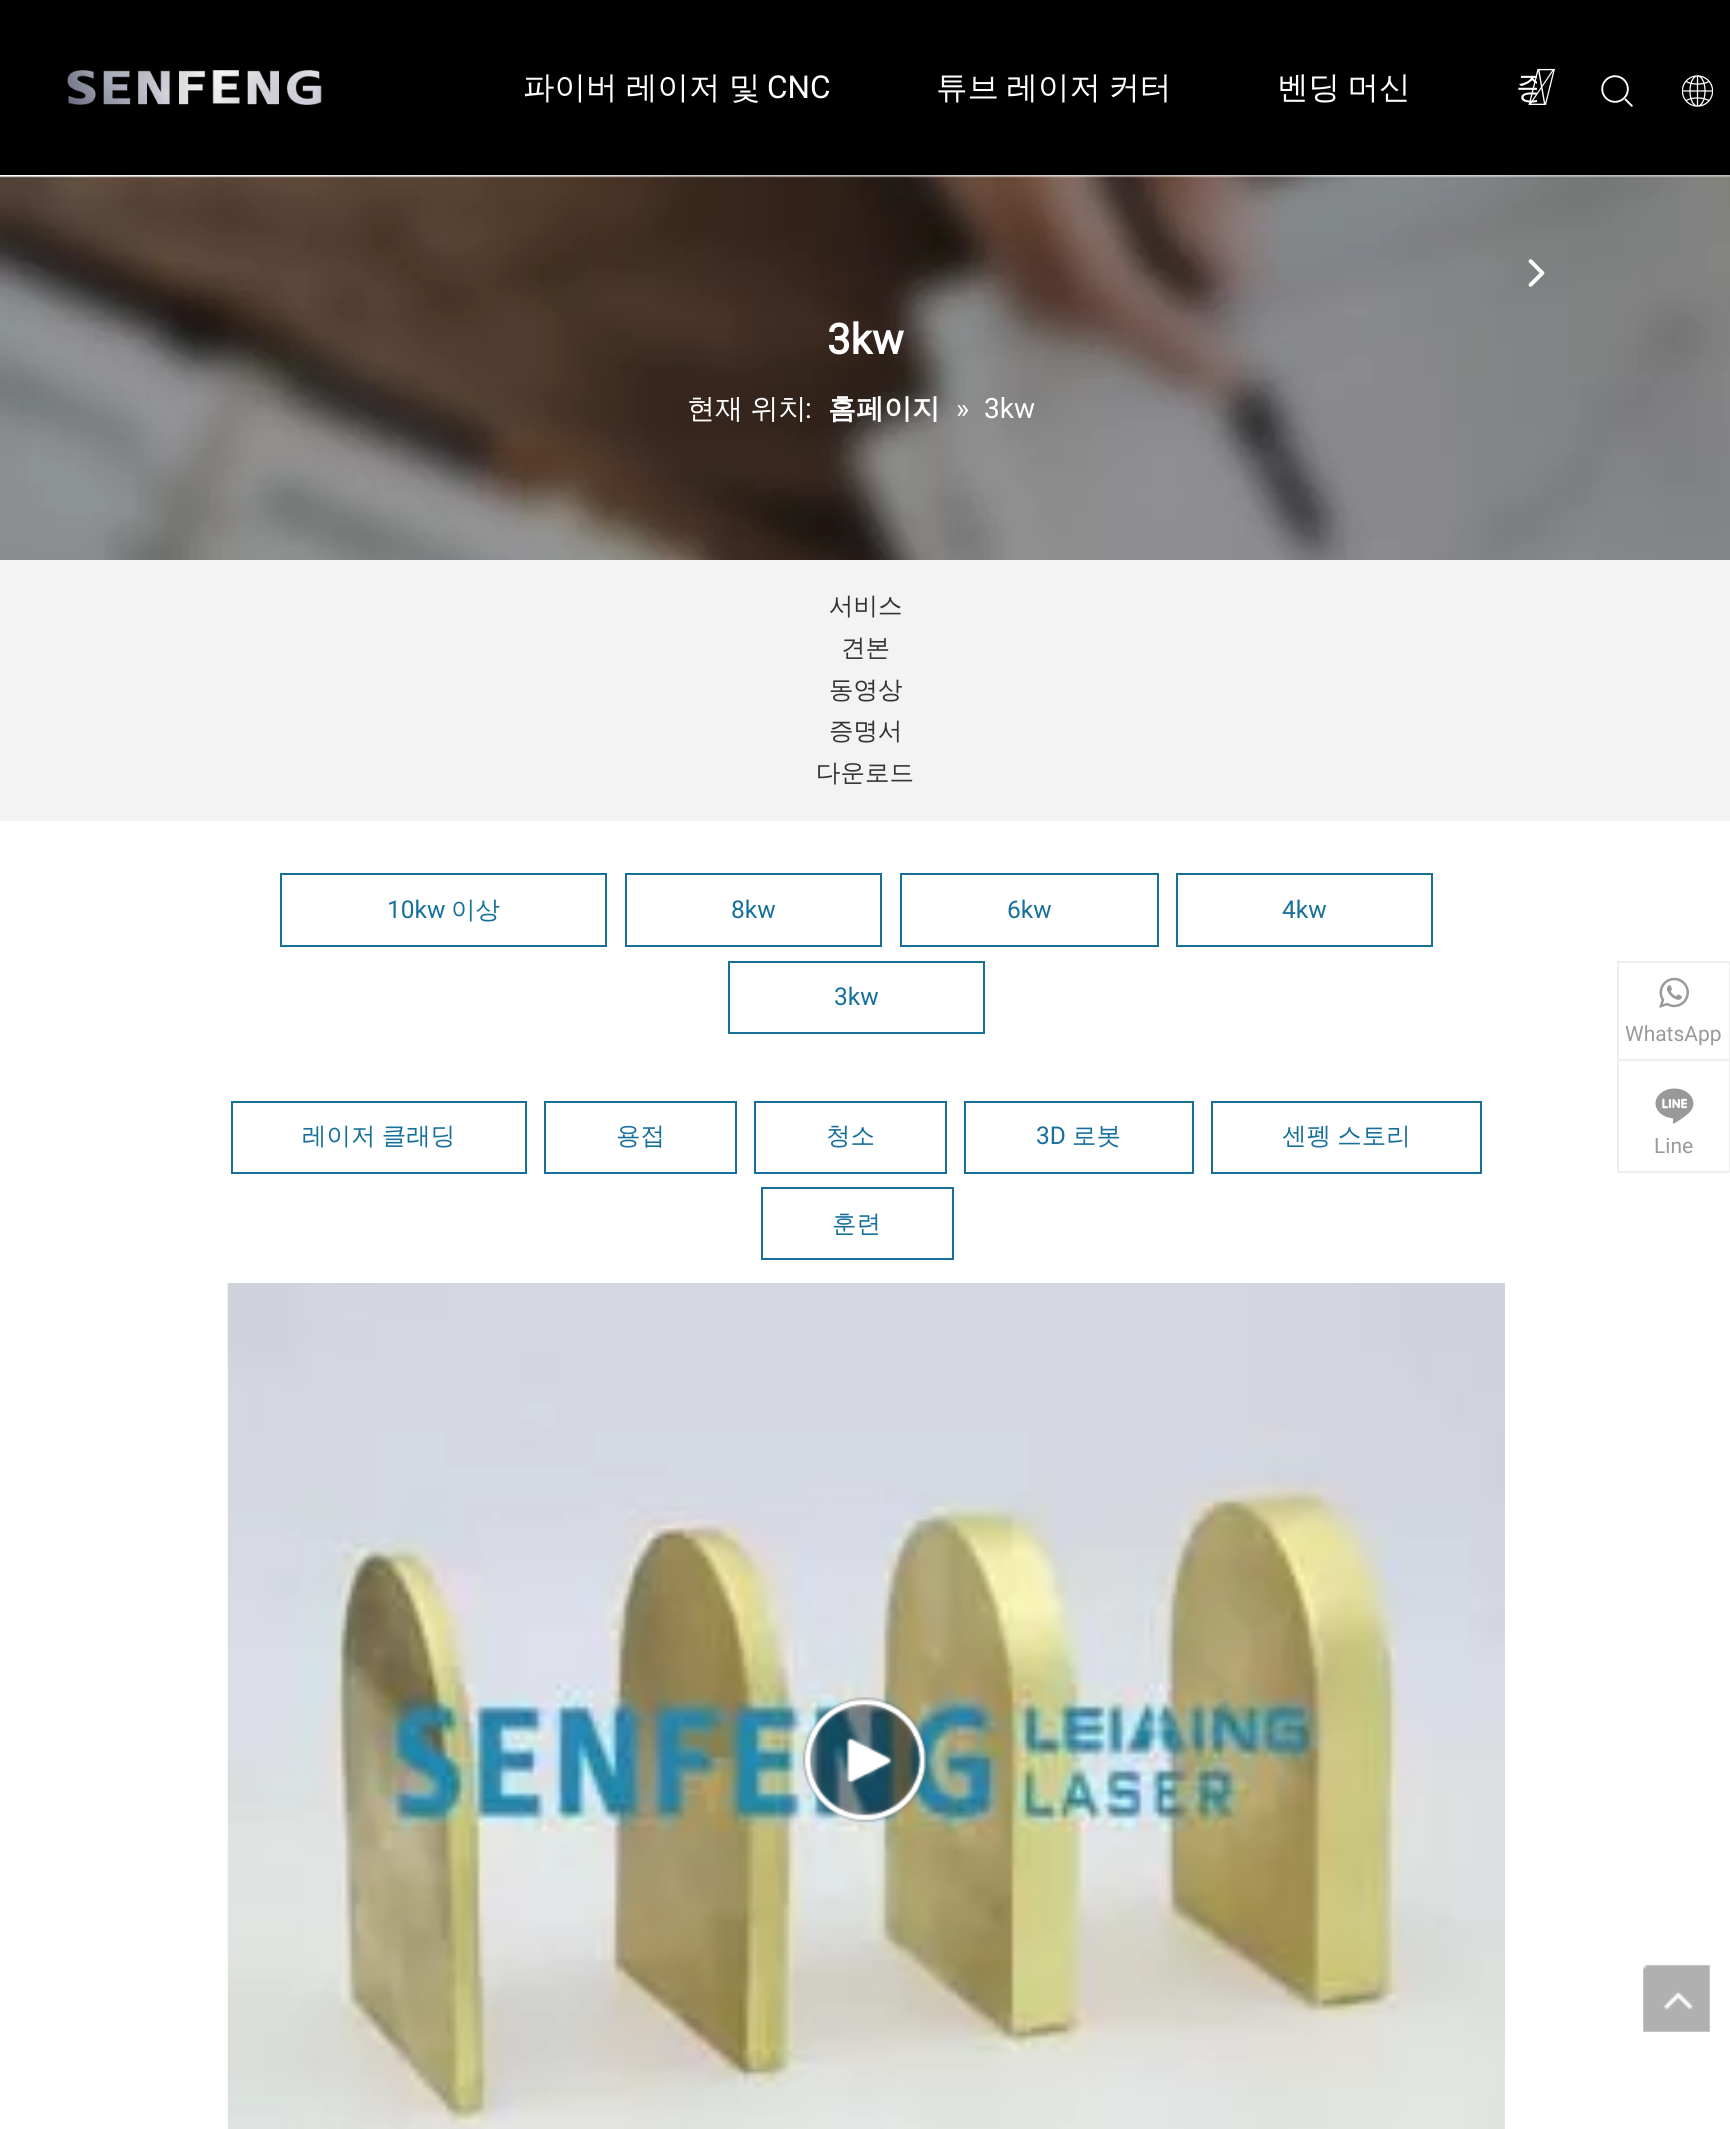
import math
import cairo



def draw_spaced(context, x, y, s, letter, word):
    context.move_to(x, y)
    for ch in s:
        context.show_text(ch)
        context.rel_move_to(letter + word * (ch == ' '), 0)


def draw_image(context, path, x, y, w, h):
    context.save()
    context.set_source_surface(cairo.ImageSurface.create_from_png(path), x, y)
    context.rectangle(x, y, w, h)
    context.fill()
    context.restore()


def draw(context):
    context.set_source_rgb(1, 1, 1)
    context.paint()
    context.set_source_rgb(0, 0, 0)
    context.rectangle(0, 0, 1730, 175)
    context.fill()
    draw_image(context, "images/1.png", 67, 70, 255, 35)
    draw_image(context, "images/6.png", 0, 175, 1730, 385)
    draw_image(context, "images/3.png", 1528, 259, 17, 28)
    draw_image(context, "images/4.png", 1601, 75, 32, 32)
    draw_image(context, "images/5.png", 1682, 75, 31, 32)
    context.set_source_rgb(243 / 255, 243 / 255, 243 / 255)
    context.rectangle(0, 560, 1730, 261)
    context.fill()
    context.rectangle(281, 874, 325, 72)
    context.set_source_rgb(22 / 255, 112 / 255, 155 / 255)
    context.stroke()
    context.rectangle(626, 874, 255, 72)
    context.stroke()
    context.rectangle(901, 874, 257, 72)
    context.stroke()
    context.rectangle(1177, 874, 255, 72)
    context.stroke()
    context.rectangle(729, 962, 255, 71)
    context.stroke()
    context.rectangle(232, 1102, 294, 71)
    context.stroke()
    context.rectangle(545, 1102, 191, 71)
    context.stroke()
    context.rectangle(755, 1102, 191, 71)
    context.stroke()
    context.rectangle(965, 1102, 228, 71)
    context.stroke()
    context.rectangle(1212, 1102, 269, 71)
    context.stroke()
    context.rectangle(762, 1188, 191, 71)
    context.stroke()
    draw_image(context, "images/7.png", 227, 1283, 1278, 846)
    draw_image(context, "images/8.png", 799, 1697, 129, 126)
    context.set_source_rgb(238 / 255, 238 / 255, 238 / 255)
    context.rectangle(1617, 961, 113, 2)
    context.fill()
    context.rectangle(1729, 961, 1, 98)
    context.fill()
    context.rectangle(1617, 961, 2, 98)
    context.fill()
    draw_image(context, "images/9.png", 1659, 977, 30, 31)
    context.rectangle(1618, 1060, 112, 112)
    context.stroke()
    draw_image(context, "images/10.png", 1655, 1088, 39, 36)
    draw_image(context, "images/11.png", 1643, 1965, 67, 67)
    context.select_font_face("WenQuanYi Zen Hei Medium")
    context.set_font_size(31.5)
    context.set_source_rgb(1, 1, 1)
    draw_spaced(context, 523, 98, "파이버 레이저 및", 0, -1)
    context.select_font_face("Roboto")
    context.move_to(767, 98)
    context.show_text("CNC")
    context.select_font_face("WenQuanYi Zen Hei Medium")
    draw_spaced(context, 936, 98, "튜브 레이저 커터", 0, -2)
    draw_spaced(context, 1277, 98, "벤딩 머신", 0, -2)
    context.save()
    context.rectangle(523, 0, 1014, 175)
    context.clip()
    context.move_to(1516, 98)
    context.show_text("증")
    context.restore()
    draw_image(context, "images/2.png", 1528, 68, 27, 37)
    context.select_font_face("Roboto", cairo.FontSlant.NORMAL, cairo.FontWeight.BOLD)
    context.set_font_size(42)
    context.move_to(827, 354)
    context.show_text("3kw")
    context.select_font_face("WenQuanYi Zen Hei Medium")
    context.set_font_size(28)
    draw_spaced(context, 687, 418, "현재 위치", 0, -1)
    context.select_font_face("Roboto")
    context.move_to(805, 418)
    context.show_text(":")
    context.select_font_face("WenQuanYi Zen Hei", cairo.FontSlant.NORMAL, cairo.FontWeight.BOLD)
    context.move_to(828, 418)
    context.show_text("홈페이지")
    context.select_font_face("Roboto")
    context.move_to(956, 418)
    context.show_text("»")
    context.move_to(984, 418)
    context.show_text("3kw")
    context.select_font_face("WenQuanYi Zen Hei Medium")
    context.set_font_size(24.5)
    context.set_source_rgb(51 / 255, 51 / 255, 51 / 255)
    context.move_to(829, 614)
    context.show_text("서비스")
    context.move_to(841, 656)
    context.show_text("견본")
    context.move_to(829, 698)
    context.show_text("동영상")
    context.move_to(829, 739)
    context.show_text("증명서")
    context.move_to(816, 781)
    context.show_text("다운로드")
    context.select_font_face("Roboto")
    context.set_source_rgb(22 / 255, 112 / 255, 155 / 255)
    context.move_to(387, 918)
    context.show_text("10kw")
    context.select_font_face("WenQuanYi Zen Hei Medium")
    context.move_to(451, 918)
    context.show_text("이상")
    context.select_font_face("Roboto")
    context.move_to(731, 918)
    context.show_text("8kw")
    context.move_to(1007, 918)
    context.show_text("6kw")
    context.move_to(1282, 918)
    context.show_text("4kw")
    context.move_to(834, 1005)
    context.show_text("3kw")
    context.select_font_face("WenQuanYi Zen Hei Medium")
    draw_spaced(context, 302, 1144, "레이저 클래딩", 0, -1)
    context.move_to(616, 1144)
    context.show_text("용접")
    context.move_to(826, 1144)
    context.show_text("청소")
    context.select_font_face("Roboto")
    context.move_to(1036, 1144)
    context.show_text("3D")
    context.select_font_face("WenQuanYi Zen Hei Medium")
    context.move_to(1072, 1144)
    context.show_text("로봇")
    draw_spaced(context, 1282, 1144, "센펭 스토리", 0, -1)
    context.move_to(832, 1232)
    context.show_text("훈련")
    context.select_font_face("Roboto")
    context.set_font_size(21)
    context.set_source_rgb(153 / 255, 153 / 255, 153 / 255)
    context.move_to(1625, 1041)
    context.show_text("WhatsApp")
    context.move_to(1654, 1153)
    context.show_text("Line")


surface = cairo.ImageSurface(cairo.Format.RGB24, 1730, 2129)
context = cairo.Context(surface)
options = cairo.FontOptions()
options.set_hint_metrics(cairo.HintMetrics.OFF)
options.set_hint_style(cairo.HintStyle.NONE)
context.set_font_options(options)
context.set_miter_limit(4)
draw(context)
surface.write_to_png("out.png")
